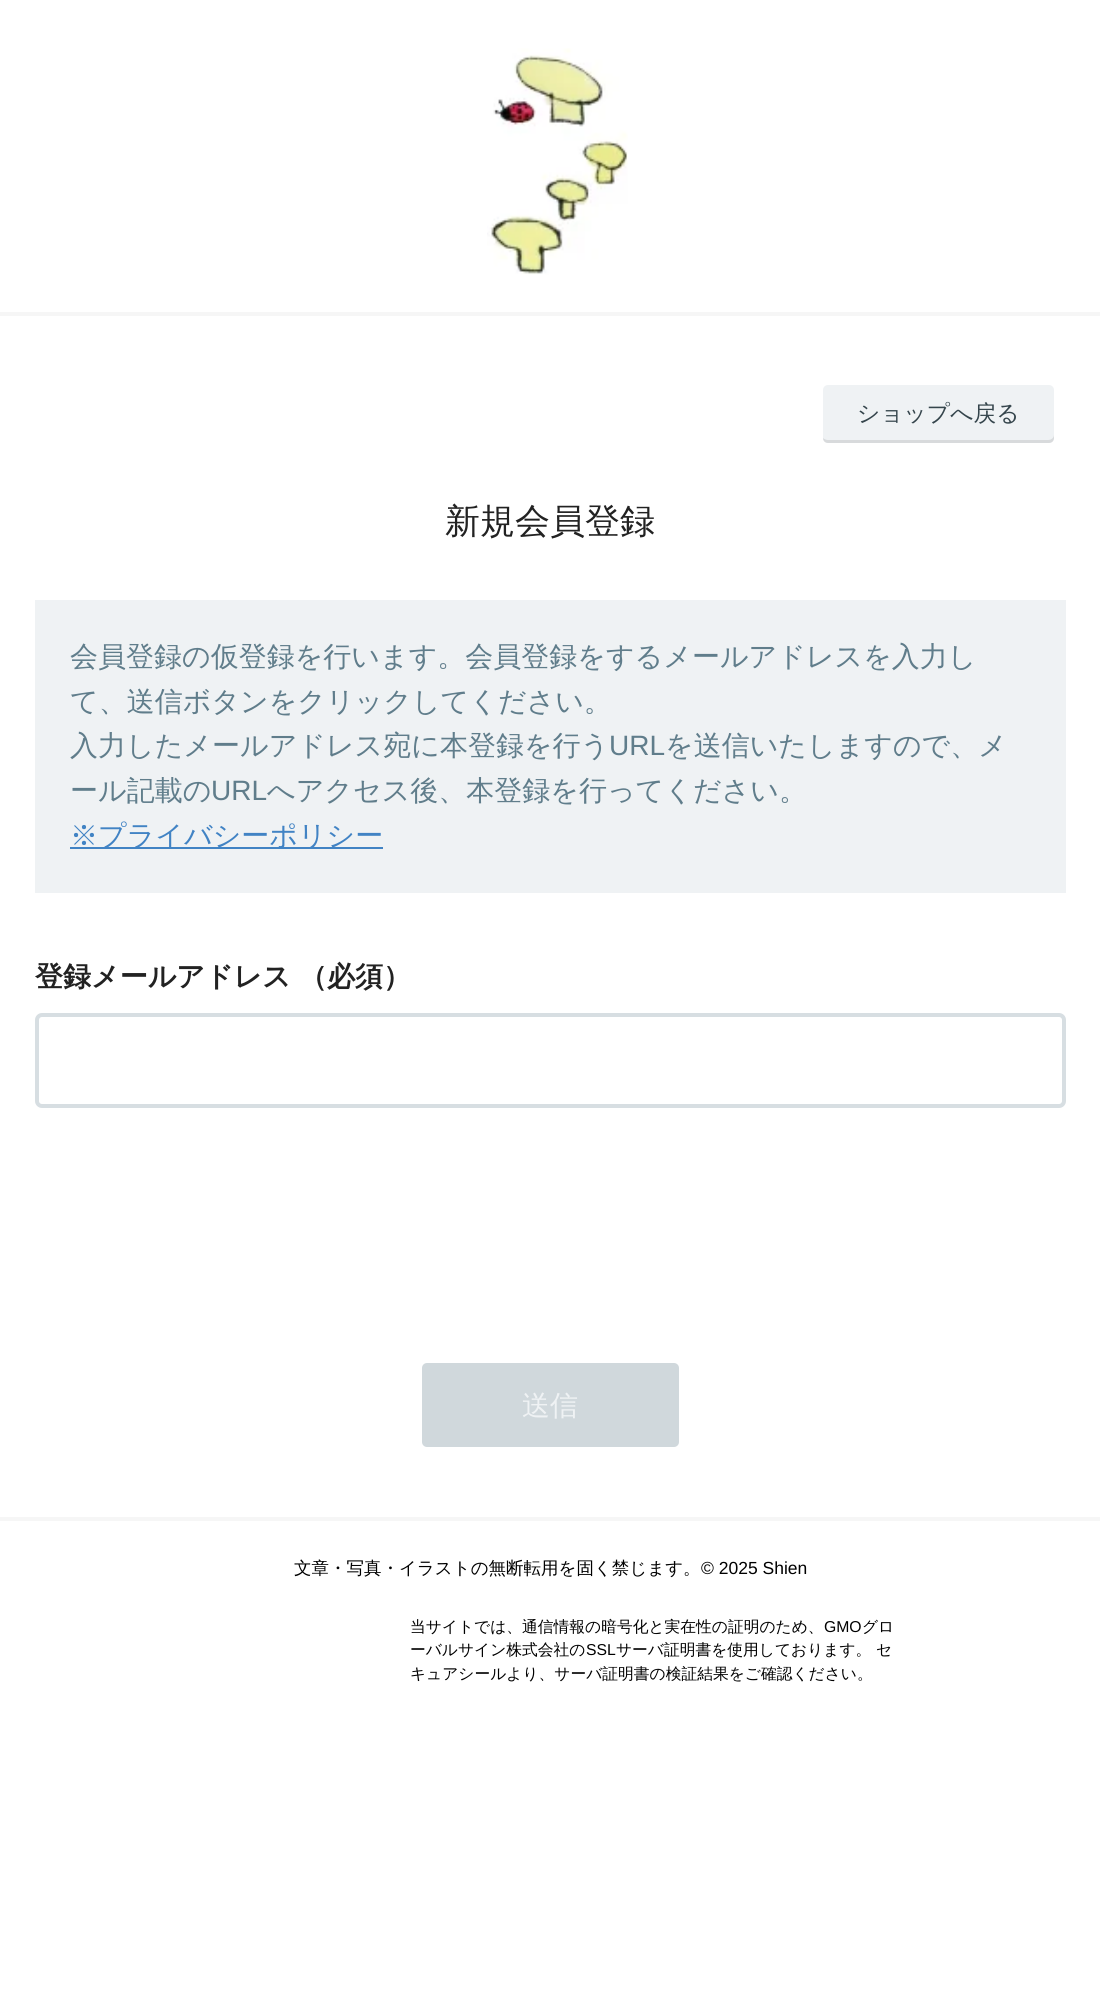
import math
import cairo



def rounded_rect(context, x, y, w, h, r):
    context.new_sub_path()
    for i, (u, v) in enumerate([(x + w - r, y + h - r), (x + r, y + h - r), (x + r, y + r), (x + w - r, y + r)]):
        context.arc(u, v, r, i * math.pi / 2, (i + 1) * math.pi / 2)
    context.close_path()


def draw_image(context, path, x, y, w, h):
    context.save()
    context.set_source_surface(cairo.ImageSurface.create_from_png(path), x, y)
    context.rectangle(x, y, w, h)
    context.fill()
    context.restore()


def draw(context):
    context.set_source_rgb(1, 1, 1)
    context.paint()
    draw_image(context, "images/1.png", 487, 48, 141, 227)
    context.set_source_rgb(246 / 255, 246 / 255, 246 / 255)
    context.rectangle(0, 312, 1100, 4)
    context.fill()
    context.rectangle(0, 1517, 1100, 4)
    context.fill()
    context.set_source_rgb(239 / 255, 242 / 255, 244 / 255)
    rounded_rect(context, 823, 385, 231, 58, 5)
    context.fill()
    context.set_source_rgba(0, 0, 0, 0.1)
    context.new_path()
    context.move_to(823, 438)
    context.curve_to(823, 441, 825, 443, 828, 443)
    context.line_to(1049, 443)
    context.curve_to(1052, 443, 1054, 441, 1054, 438)
    context.line_to(1054, 435)
    context.curve_to(1054, 438, 1051, 440, 1048, 440)
    context.line_to(828, 440)
    context.curve_to(826, 440, 824, 439, 823, 438)
    context.close_path()
    context.fill()
    context.set_source_rgb(239 / 255, 242 / 255, 244 / 255)
    context.rectangle(35, 600, 1031, 293)
    context.fill()
    context.set_source_rgb(65 / 255, 131 / 255, 196 / 255)
    context.rectangle(70, 847, 313, 2)
    context.fill()
    rounded_rect(context, 37, 1015, 1027, 91, 5)
    context.set_source_rgb(215 / 255, 222 / 255, 226 / 255)
    context.set_line_width(4)
    context.stroke()
    context.set_source_rgb(208 / 255, 216 / 255, 220 / 255)
    rounded_rect(context, 422, 1363, 257, 84, 5)
    context.fill()
    context.select_font_face("WenQuanYi Zen Hei Medium")
    context.set_font_size(22.75)
    context.set_source_rgb(53 / 255, 69 / 255, 76 / 255)
    context.move_to(857, 421)
    context.show_text("ショップへ戻る")
    context.set_font_size(35)
    context.set_source_rgb(34 / 255, 34 / 255, 34 / 255)
    context.move_to(445, 533)
    context.show_text("新規会員登録")
    context.set_font_size(28)
    context.set_source_rgb(96 / 255, 125 / 255, 139 / 255)
    context.move_to(70, 666)
    context.show_text("会員登録の仮登録を行います。会員登録をするメールアドレスを入力し")
    context.move_to(70, 711)
    context.show_text("て、送信ボタンをクリックしてください。")
    context.move_to(70, 755)
    context.show_text("入力したメールアドレス宛に本登録を行う")
    context.select_font_face("Liberation Sans")
    context.move_to(609, 755)
    context.show_text("URL")
    context.select_font_face("WenQuanYi Zen Hei Medium")
    context.move_to(665, 755)
    context.show_text("を送信いたしますので、メ")
    context.move_to(70, 800)
    context.show_text("ール記載の")
    context.select_font_face("Liberation Sans")
    context.move_to(211, 800)
    context.show_text("URL")
    context.select_font_face("WenQuanYi Zen Hei Medium")
    context.move_to(267, 800)
    context.show_text("へアクセス後、本登録を行ってください。")
    context.set_source_rgb(65 / 255, 131 / 255, 196 / 255)
    context.move_to(70, 845)
    context.show_text("※プライバシーポリシー")
    context.select_font_face("WenQuanYi Zen Hei", cairo.FontSlant.NORMAL, cairo.FontWeight.BOLD)
    context.set_source_rgb(34 / 255, 34 / 255, 34 / 255)
    context.move_to(35, 986)
    context.show_text("登録メールアドレス")
    context.move_to(299, 986)
    context.show_text("（必須）")
    context.select_font_face("WenQuanYi Zen Hei Medium")
    context.set_source_rgb(239 / 255, 242 / 255, 244 / 255)
    context.move_to(522, 1415)
    context.show_text("送信")
    context.set_font_size(17.5)
    context.set_source_rgb(0, 0, 0)
    context.move_to(294, 1574)
    context.show_text("文章・写真・イラストの無断転用を固く禁じます。")
    context.select_font_face("Liberation Sans")
    context.move_to(701, 1574)
    context.show_text("© 2025 Shien")
    context.select_font_face("WenQuanYi Zen Hei Medium")
    context.set_font_size(15.75)
    context.move_to(410, 1632)
    context.show_text("当サイトでは、通信情報の暗号化と実在性の証明のため、")
    context.select_font_face("Liberation Sans")
    context.move_to(824, 1632)
    context.show_text("GMO")
    context.select_font_face("WenQuanYi Zen Hei Medium")
    context.move_to(862, 1632)
    context.show_text("グロ")
    context.move_to(410, 1655)
    context.show_text("ーバルサイン株式会社の")
    context.select_font_face("Liberation Sans")
    context.move_to(586, 1655)
    context.show_text("SSL")
    context.select_font_face("WenQuanYi Zen Hei Medium")
    context.move_to(616, 1655)
    context.show_text("サーバ証明書を使用しております。 セ")
    context.move_to(410, 1679)
    context.show_text("キュアシールより、サーバ証明書の検証結果をご確認ください。")


surface = cairo.ImageSurface(cairo.Format.RGB24, 1100, 2008)
context = cairo.Context(surface)
options = cairo.FontOptions()
options.set_hint_metrics(cairo.HintMetrics.OFF)
options.set_hint_style(cairo.HintStyle.NONE)
context.set_font_options(options)
context.set_miter_limit(4)
draw(context)
surface.write_to_png("out.png")
